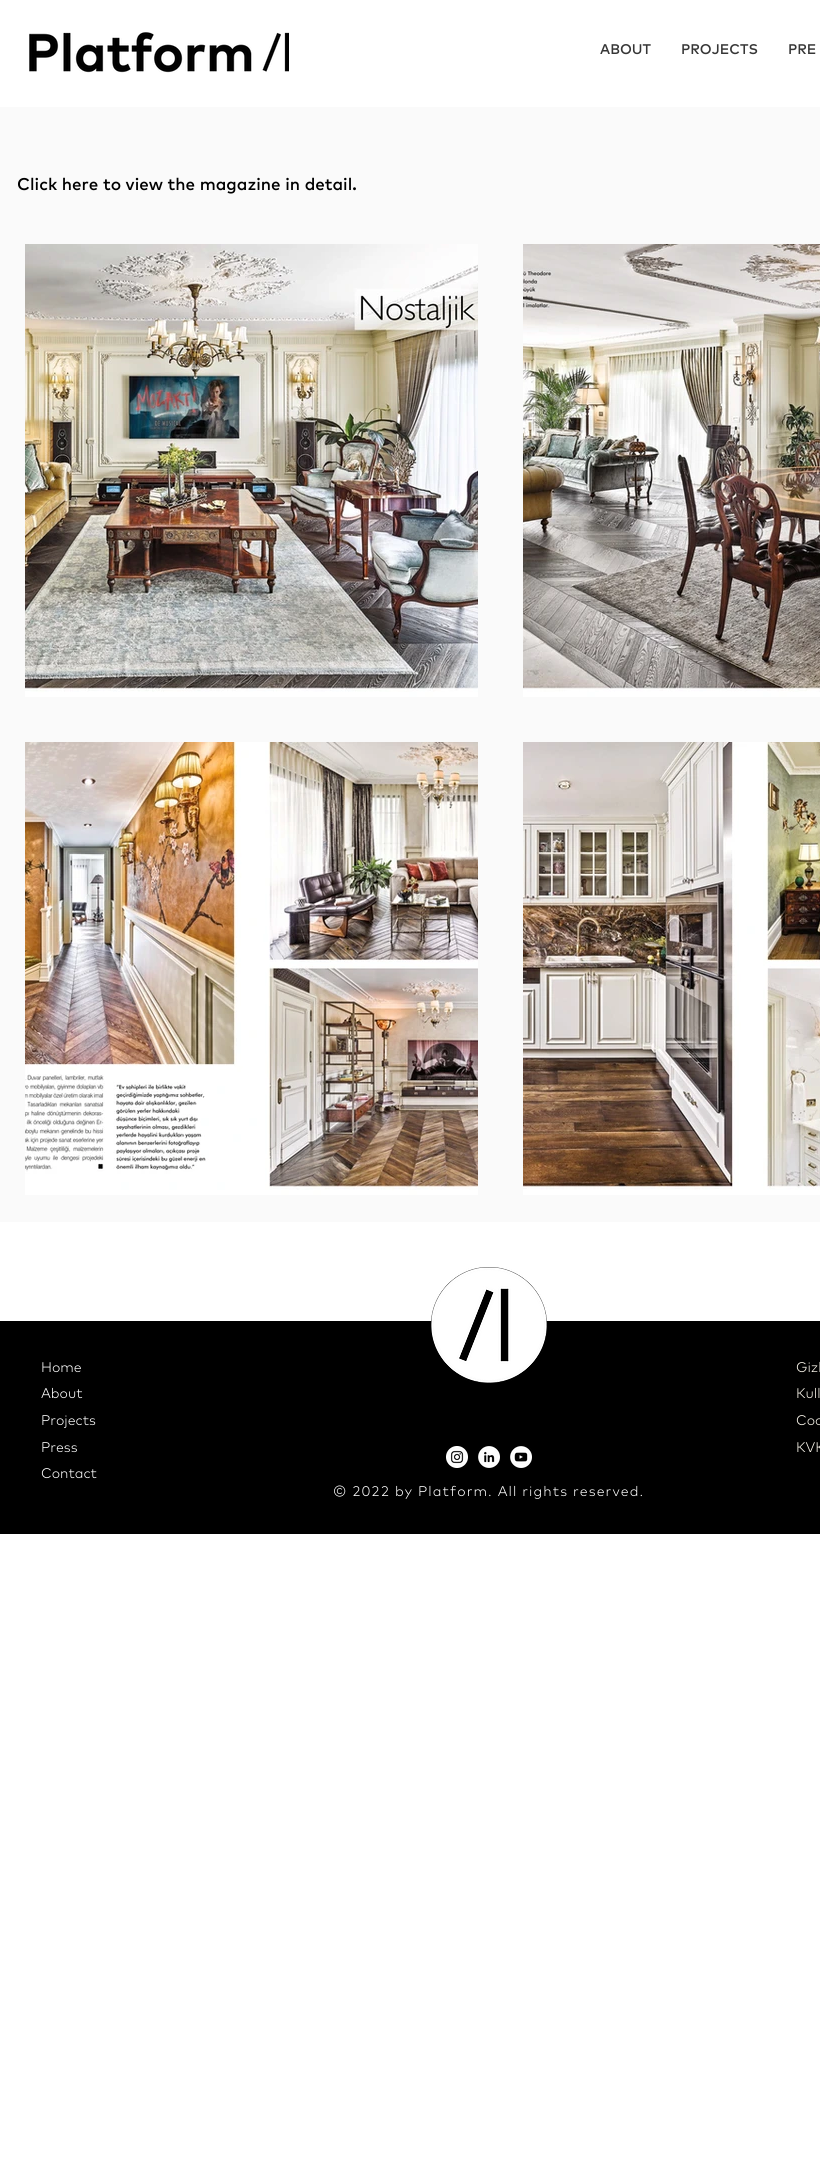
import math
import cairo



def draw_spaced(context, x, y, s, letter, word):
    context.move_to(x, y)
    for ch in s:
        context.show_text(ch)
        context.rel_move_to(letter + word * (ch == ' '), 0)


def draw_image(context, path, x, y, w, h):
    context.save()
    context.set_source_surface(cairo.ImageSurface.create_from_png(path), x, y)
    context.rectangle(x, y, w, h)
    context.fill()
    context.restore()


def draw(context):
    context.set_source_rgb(1, 1, 1)
    context.paint()
    draw_image(context, "images/1.png", 29, 32, 260, 41)
    context.set_source_rgb(250 / 255, 250 / 255, 250 / 255)
    context.rectangle(0, 107, 820, 1115)
    context.fill()
    draw_image(context, "images/2.png", 25, 244, 453, 453)
    draw_image(context, "images/3.png", 523, 244, 297, 453)
    draw_image(context, "images/4.png", 25, 742, 453, 453)
    draw_image(context, "images/5.png", 523, 742, 297, 453)
    context.set_source_rgb(0, 0, 0)
    context.rectangle(0, 1321, 820, 213)
    context.fill()
    draw_image(context, "images/6.png", 431, 1267, 116, 116)
    draw_image(context, "images/7.png", 446, 1446, 22, 22)
    draw_image(context, "images/8.png", 478, 1446, 22, 22)
    draw_image(context, "images/9.png", 510, 1446, 22, 22)
    context.select_font_face("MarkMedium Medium")
    context.set_font_size(14)
    context.set_source_rgb(54 / 255, 54 / 255, 54 / 255)
    context.move_to(600, 54)
    context.show_text("ABOUT")
    context.move_to(681, 54)
    context.show_text("PROJECTS")
    context.move_to(788, 54)
    context.show_text("PRE")
    context.set_font_size(17)
    context.set_source_rgb(0, 0, 0)
    context.move_to(17, 190)
    context.show_text("Click here to view the magazine in detail.")
    context.select_font_face("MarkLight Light")
    context.set_font_size(14)
    context.set_source_rgb(1, 1, 1)
    context.move_to(41, 1372)
    context.show_text("Home")
    context.move_to(41, 1398)
    context.show_text("About")
    context.move_to(41, 1425)
    context.show_text("Projects")
    context.move_to(41, 1452)
    context.show_text("Press")
    context.move_to(41, 1478)
    context.show_text("Contact")
    context.set_source_rgb(252 / 255, 248 / 255, 237 / 255)
    context.move_to(796, 1372)
    context.show_text("Gizl")
    context.move_to(796, 1398)
    context.show_text("Kull")
    context.move_to(796, 1425)
    context.show_text("Coo")
    context.move_to(796, 1452)
    context.show_text("KVK")
    context.set_source_rgb(1, 1, 1)
    draw_spaced(context, 333, 1496, "© 2022 by Platform. All rights reserved.", 1.1, 0)


surface = cairo.ImageSurface(cairo.Format.RGB24, 820, 2176)
context = cairo.Context(surface)
options = cairo.FontOptions()
options.set_hint_metrics(cairo.HintMetrics.OFF)
options.set_hint_style(cairo.HintStyle.NONE)
context.set_font_options(options)
context.set_miter_limit(4)
draw(context)
surface.write_to_png("out.png")
